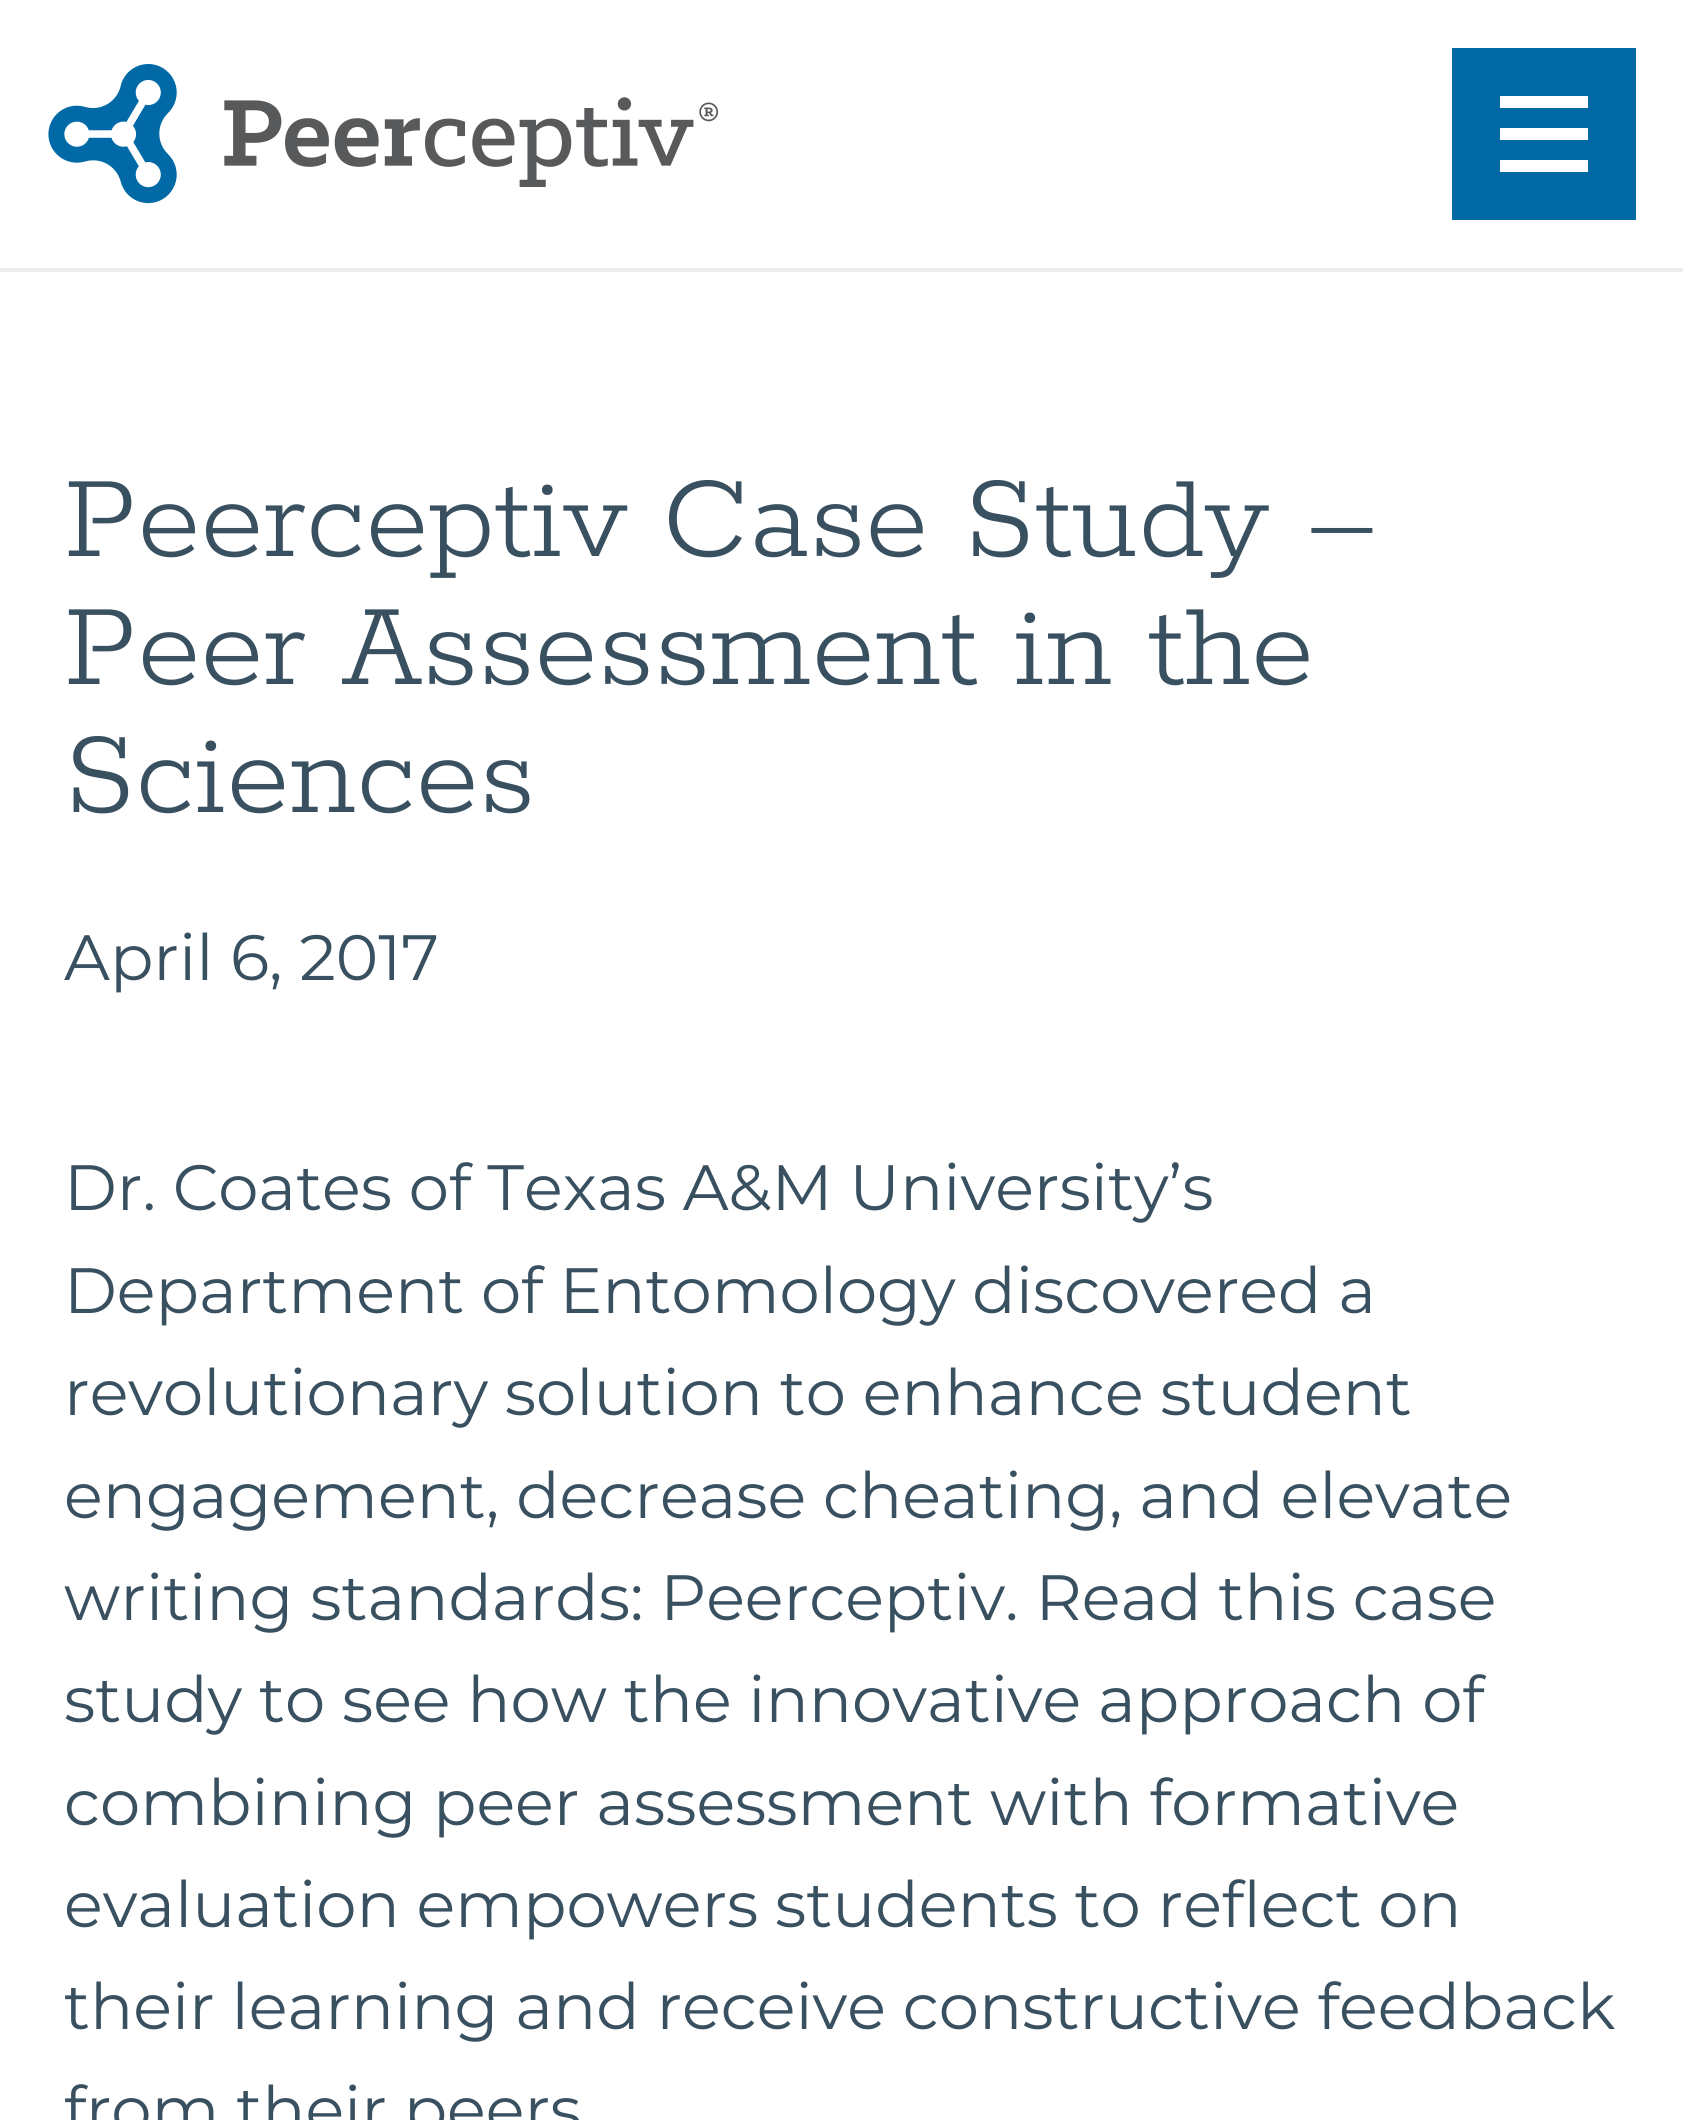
import math
import cairo



def draw_image(context, path, x, y, w, h):
    context.save()
    context.set_source_surface(cairo.ImageSurface.create_from_png(path), x, y)
    context.rectangle(x, y, w, h)
    context.fill()
    context.restore()


def draw(context):
    context.set_source_rgb(1, 1, 1)
    context.paint()
    context.set_source_rgb(236 / 255, 236 / 255, 236 / 255)
    context.rectangle(0, 268, 1683, 4)
    context.fill()
    draw_image(context, "images/1.png", 48, 64, 671, 140)
    context.set_source_rgb(0, 105 / 255, 166 / 255)
    context.rectangle(1452, 48, 184, 172)
    context.fill()
    context.set_source_rgb(1, 1, 1)
    context.new_path()
    context.move_to(1500, 108)
    context.line_to(1500, 96)
    context.line_to(1588, 96)
    context.line_to(1588, 108)
    context.close_path()
    context.move_to(1500, 140)
    context.line_to(1500, 128)
    context.line_to(1588, 128)
    context.line_to(1588, 140)
    context.close_path()
    context.move_to(1500, 172)
    context.line_to(1500, 160)
    context.line_to(1588, 160)
    context.line_to(1588, 172)
    context.close_path()
    context.fill()
    context.select_font_face("Rokkitt Light")
    context.set_font_size(128)
    context.set_source_rgb(57 / 255, 80 / 255, 97 / 255)
    context.move_to(64, 556)
    context.show_text("Peerceptiv Case Study –")
    context.move_to(64, 684)
    context.show_text("Peer Assessment in the")
    context.move_to(64, 812)
    context.show_text("Sciences")
    context.select_font_face("Montserrat")
    context.set_font_size(64)
    context.move_to(64, 980)
    context.show_text("April 6, 2017")
    context.move_to(64, 1210)
    context.show_text("Dr. Coates of Texas A&M University’s")
    context.move_to(64, 1313)
    context.show_text("Department of Entomology discovered a")
    context.move_to(64, 1415)
    context.show_text("revolutionary solution to enhance student")
    context.move_to(64, 1518)
    context.show_text("engagement, decrease cheating, and elevate")
    context.move_to(64, 1620)
    context.show_text("writing standards: Peerceptiv. Read this case")
    context.move_to(64, 1722)
    context.show_text("study to see how the innovative approach of")
    context.move_to(64, 1825)
    context.show_text("combining peer assessment with formative")
    context.move_to(64, 1927)
    context.show_text("evaluation empowers students to reflect on")
    context.move_to(64, 2029)
    context.show_text("their learning and receive constructive feedback")
    context.move_to(64, 2132)
    context.show_text("from their peers")


surface = cairo.ImageSurface(cairo.Format.RGB24, 1683, 2120)
context = cairo.Context(surface)
options = cairo.FontOptions()
options.set_hint_metrics(cairo.HintMetrics.OFF)
options.set_hint_style(cairo.HintStyle.NONE)
context.set_font_options(options)
context.set_miter_limit(4)
draw(context)
surface.write_to_png("out.png")
